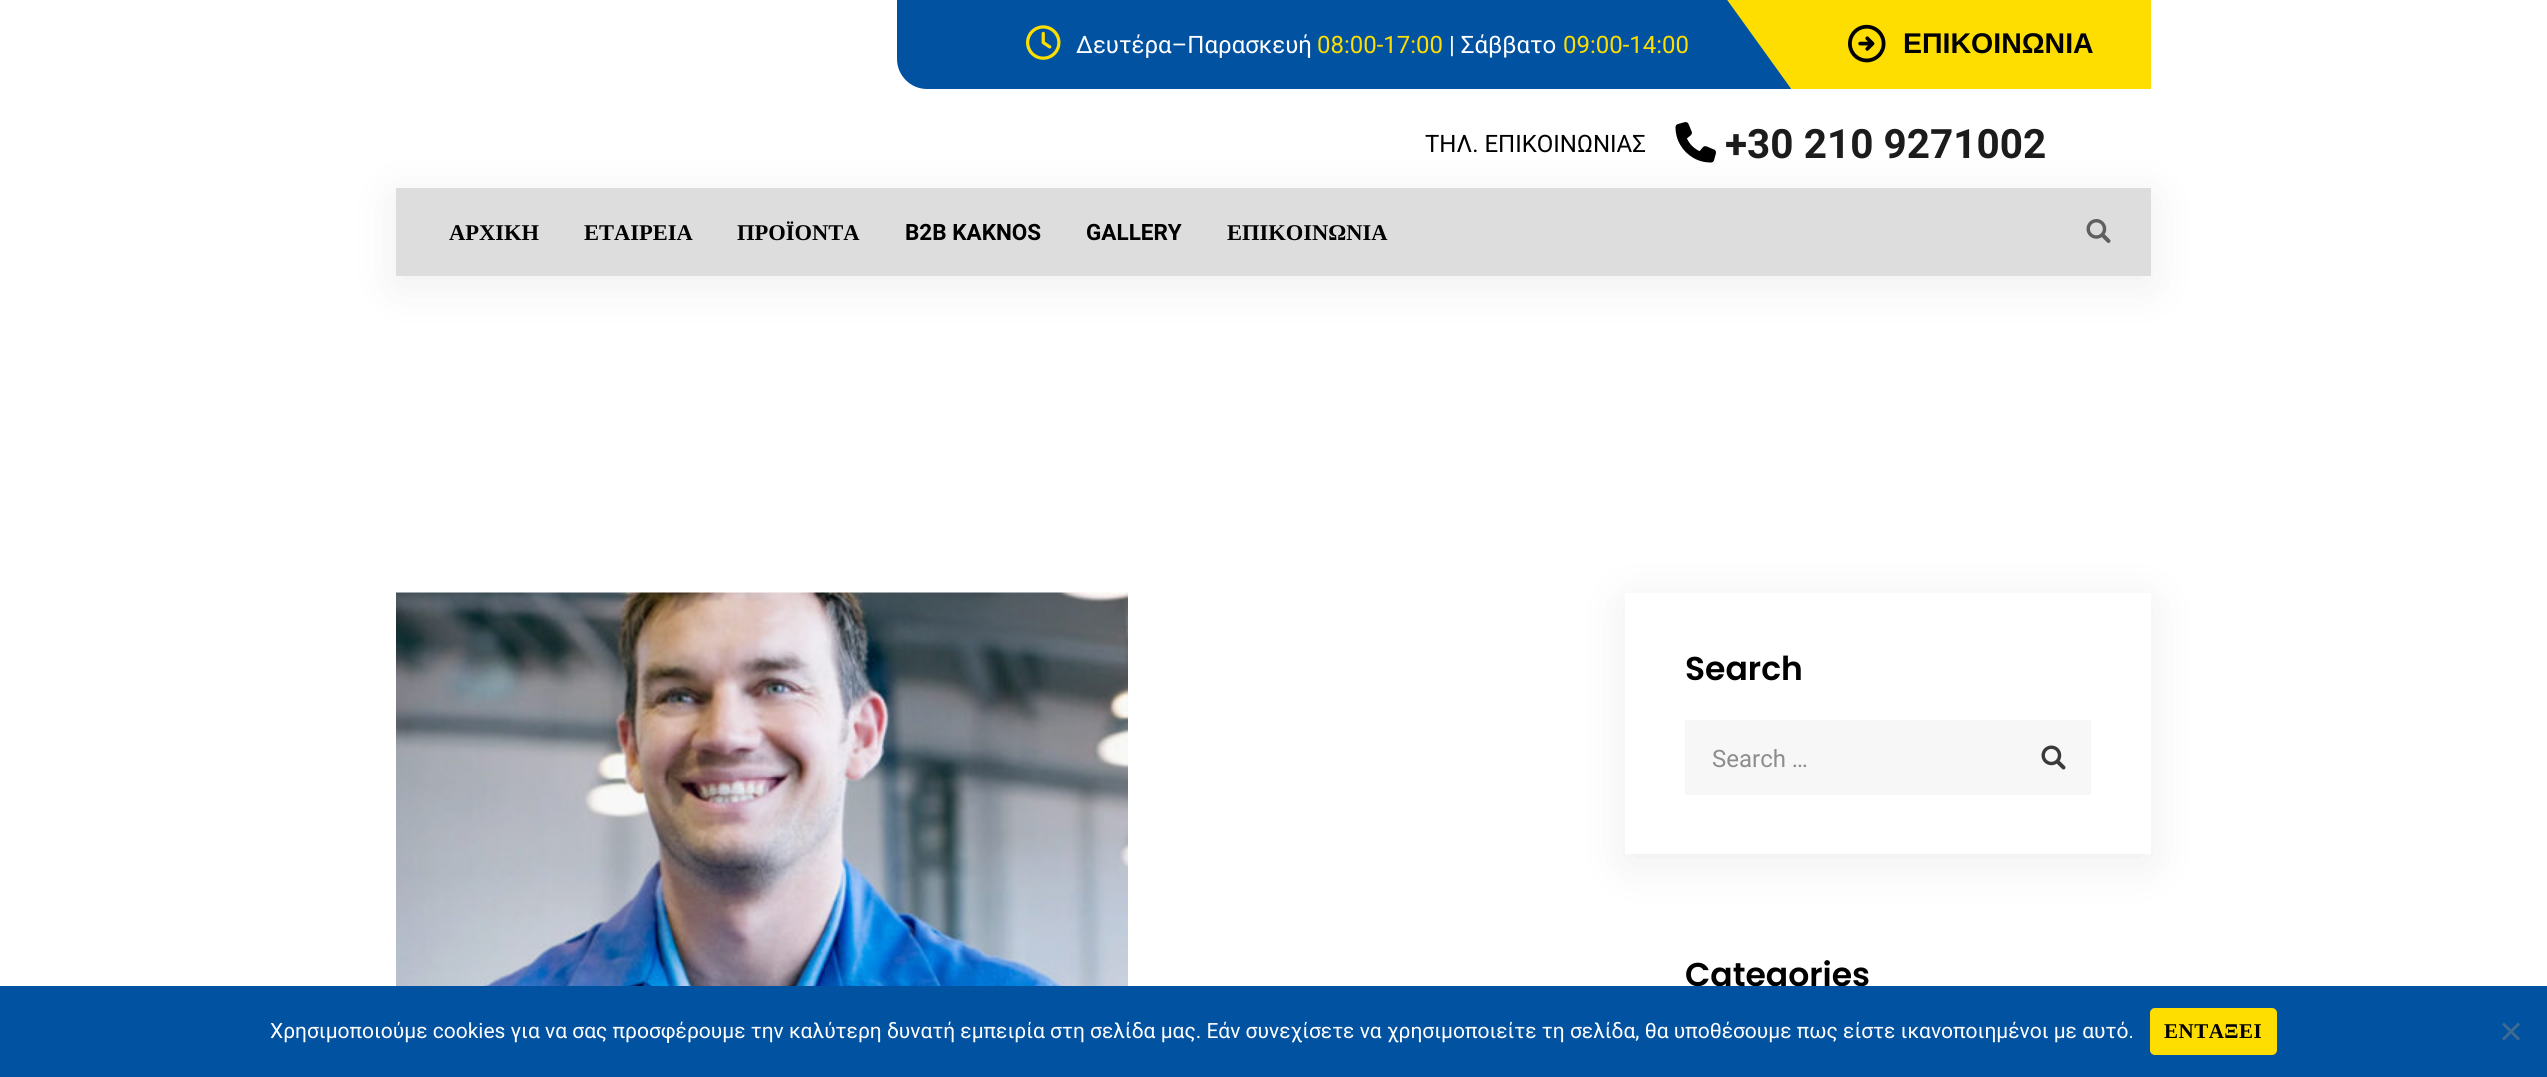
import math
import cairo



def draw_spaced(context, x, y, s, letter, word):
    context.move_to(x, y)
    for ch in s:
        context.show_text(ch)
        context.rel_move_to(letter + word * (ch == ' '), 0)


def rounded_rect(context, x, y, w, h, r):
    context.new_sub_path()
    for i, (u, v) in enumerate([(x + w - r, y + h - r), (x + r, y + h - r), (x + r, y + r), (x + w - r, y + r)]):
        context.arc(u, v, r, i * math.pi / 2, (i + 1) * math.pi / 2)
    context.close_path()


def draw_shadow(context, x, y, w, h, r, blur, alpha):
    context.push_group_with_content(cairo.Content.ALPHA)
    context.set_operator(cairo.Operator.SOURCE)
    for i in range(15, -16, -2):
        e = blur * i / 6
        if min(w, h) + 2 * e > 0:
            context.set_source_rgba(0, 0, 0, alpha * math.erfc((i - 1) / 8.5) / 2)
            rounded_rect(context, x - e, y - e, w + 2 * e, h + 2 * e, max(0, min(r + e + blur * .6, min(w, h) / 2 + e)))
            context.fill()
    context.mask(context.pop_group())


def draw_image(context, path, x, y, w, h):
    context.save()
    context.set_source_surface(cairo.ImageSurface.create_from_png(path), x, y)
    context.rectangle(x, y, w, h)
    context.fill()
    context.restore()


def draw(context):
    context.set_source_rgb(1, 1, 1)
    context.paint()
    context.set_source_rgb(1 / 255, 83 / 255, 162 / 255)
    context.new_path()
    context.move_to(897, 0)
    context.line_to(1814, 0)
    context.line_to(1814, 89)
    context.line_to(927, 89)
    context.curve_to(910.5, 89, 897, 75.5, 897, 59)
    context.close_path()
    context.fill()
    draw_image(context, "images/1.png", 1026, 25, 35, 35)
    context.set_source_rgb(254 / 255, 222 / 255, 0)
    context.rectangle(1791, 0, 360, 89)
    context.fill()
    context.new_path()
    context.move_to(1792, -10)
    context.line_to(1792, 90)
    context.line_to(1720, -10)
    context.close_path()
    context.fill()
    draw_image(context, "images/2.png", 1848, 24, 38, 39)
    draw_image(context, "images/3.png", 1675, 122, 41, 41)
    context.set_source_rgb(0, 0, 0)
    draw_shadow(context, 396, 197, 1755, 88, 0, 26, 0.07)
    context.set_source_rgb(221 / 255, 221 / 255, 221 / 255)
    context.rectangle(396, 188, 1755, 88)
    context.fill()
    draw_image(context, "images/4.png", 2086, 219, 25, 24)
    draw_image(context, "images/5.png", 396, 592, 732, 394)
    context.set_source_rgb(0, 0, 0)
    draw_shadow(context, 1625, 602, 526, 261, 0, 26, 0.07)
    context.set_source_rgb(1, 1, 1)
    context.rectangle(1625, 593, 526, 261)
    context.fill()
    context.set_source_rgb(247 / 255, 247 / 255, 247 / 255)
    context.rectangle(1685, 720, 406, 75)
    context.fill()
    draw_image(context, "images/6.png", 2041, 745, 25, 25)
    context.select_font_face("Roboto")
    context.set_font_size(24)
    context.set_source_rgb(1, 1, 1)
    context.move_to(1076, 53)
    context.show_text("Δευτέρα–Παρασκευή")
    context.set_source_rgb(254 / 255, 222 / 255, 0)
    context.move_to(1317, 53)
    context.show_text("08:00-17:00")
    context.set_source_rgb(1, 1, 1)
    context.move_to(1449, 53)
    context.show_text("| Σάββατο")
    context.set_source_rgb(254 / 255, 222 / 255, 0)
    context.move_to(1563, 53)
    context.show_text("09:00-14:00")
    context.select_font_face("Liberation Sans", cairo.FontSlant.NORMAL, cairo.FontWeight.BOLD)
    context.set_font_size(28.5)
    context.set_source_rgb(0, 0, 0)
    context.move_to(1903, 53)
    context.show_text("ΕΠΙΚΟΙΝΩΝΙΑ")
    context.select_font_face("Roboto")
    context.set_font_size(24)
    context.move_to(1425, 152)
    context.show_text("ΤΗΛ. ΕΠΙΚΟΙΝΩΝΙΑΣ")
    context.select_font_face("Roboto", cairo.FontSlant.NORMAL, cairo.FontWeight.BOLD)
    context.set_font_size(40.5)
    context.set_source_rgb(28 / 255, 28 / 255, 28 / 255)
    context.move_to(1725, 158)
    context.show_text("+30 210 9271002")
    context.select_font_face("Liberation Serif", cairo.FontSlant.NORMAL, cairo.FontWeight.BOLD)
    context.set_font_size(22.5)
    context.set_source_rgb(0, 0, 0)
    context.move_to(449, 240)
    context.show_text("ΑΡΧΙΚΗ")
    context.move_to(584, 240)
    context.show_text("ΕΤΑΙΡΕΙΑ")
    context.move_to(737, 240)
    context.show_text("ΠΡΟΪΟΝΤΑ")
    context.select_font_face("Roboto", cairo.FontSlant.NORMAL, cairo.FontWeight.BOLD)
    context.move_to(905, 240)
    context.show_text("B2B KAKNOS")
    context.move_to(1086, 240)
    context.show_text("GALLERY")
    context.select_font_face("Liberation Serif", cairo.FontSlant.NORMAL, cairo.FontWeight.BOLD)
    context.move_to(1227, 240)
    context.show_text("ΕΠΙΚΟΙΝΩΝΙΑ")
    context.select_font_face("Poppins SemiBold")
    context.set_font_size(33)
    context.move_to(1685, 680)
    context.show_text("Search")
    context.select_font_face("Roboto")
    context.set_font_size(24)
    context.set_source_rgb(141 / 255, 141 / 255, 141 / 255)
    context.move_to(1712, 767)
    context.show_text("Search …")
    context.select_font_face("Poppins SemiBold")
    context.set_font_size(33)
    context.set_source_rgb(0, 0, 0)
    context.move_to(1685, 986)
    context.show_text("Categories")
    context.set_source_rgb(1 / 255, 83 / 255, 162 / 255)
    context.rectangle(0, 986, 2547, 91)
    context.fill()
    context.select_font_face("Roboto")
    context.set_font_size(21)
    context.set_source_rgb(1, 1, 1)
    context.move_to(270, 1038)
    context.show_text("Χρησιμοποιούμε cookies για να σας προσφέρουμε την καλύτερη δυνατή εμπειρία στη σελίδα μας. Εάν συνεχίσετε να χρησιμοποιείτε τη σελίδα, θα υποθέσουμε πως είστε ικανοποιημένοι με αυτό.")
    context.set_source_rgb(254 / 255, 222 / 255, 0)
    rounded_rect(context, 2150, 1008, 127, 47, 5)
    context.fill()
    context.select_font_face("Liberation Serif", cairo.FontSlant.NORMAL, cairo.FontWeight.BOLD)
    context.set_source_rgb(0, 0, 0)
    draw_spaced(context, 2164, 1038, "ΕΝΤΑΞΕΙ", 0.5, 0)
    context.set_source_rgb(65 / 255, 106 / 255, 145 / 255)
    context.new_path()
    context.move_to(2518, 1022.5)
    context.line_to(2520, 1024.5)
    context.line_to(2504, 1040.5)
    context.line_to(2502, 1038.5)
    context.close_path()
    context.fill()
    context.new_path()
    context.move_to(2502, 1024.5)
    context.line_to(2504, 1022.5)
    context.line_to(2520, 1038.5)
    context.line_to(2518, 1040.5)
    context.close_path()
    context.fill()


surface = cairo.ImageSurface(cairo.Format.RGB24, 2547, 1077)
context = cairo.Context(surface)
options = cairo.FontOptions()
options.set_hint_metrics(cairo.HintMetrics.OFF)
options.set_hint_style(cairo.HintStyle.NONE)
context.set_font_options(options)
context.set_miter_limit(4)
draw(context)
surface.write_to_png("out.png")
